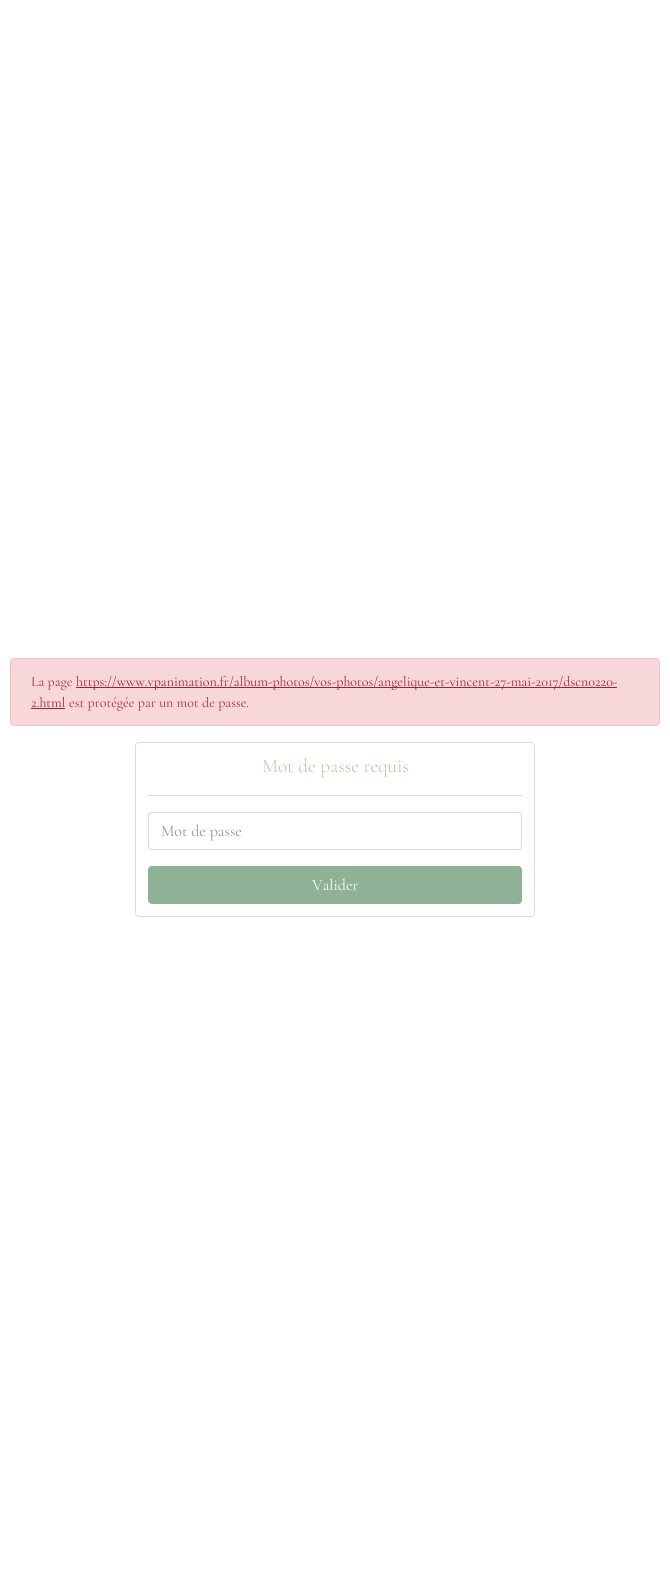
import math
import cairo



def rounded_rect(context, x, y, w, h, r):
    context.new_sub_path()
    for i, (u, v) in enumerate([(x + w - r, y + h - r), (x + r, y + h - r), (x + r, y + r), (x + w - r, y + r)]):
        context.arc(u, v, r, i * math.pi / 2, (i + 1) * math.pi / 2)
    context.close_path()


def draw(context):
    context.set_source_rgb(1, 1, 1)
    context.paint()
    context.set_source_rgb(248 / 255, 215 / 255, 218 / 255)
    rounded_rect(context, 10.5, 658.5, 649, 67, 3.5)
    context.fill_preserve()
    context.set_source_rgb(245 / 255, 194 / 255, 199 / 255)
    context.set_line_width(1)
    context.stroke()
    context.set_source_rgb(154 / 255, 37 / 255, 48 / 255)
    context.rectangle(76, 687, 541, 1)
    context.fill()
    context.rectangle(31, 708, 34, 1)
    context.fill()
    rounded_rect(context, 135.5, 742.5, 399, 174, 3.5)
    context.set_source_rgb(219 / 255, 219 / 255, 219 / 255)
    context.stroke()
    context.rectangle(148, 795, 374, 1)
    context.fill()
    rounded_rect(context, 148.5, 812.5, 373, 37, 3.5)
    context.stroke()
    context.set_source_rgb(143 / 255, 177 / 255, 149 / 255)
    rounded_rect(context, 148.5, 866.5, 373, 37, 3.5)
    context.fill_preserve()
    context.stroke()
    context.select_font_face("Cormorant Garamond")
    context.set_font_size(14)
    context.set_source_rgb(176 / 255, 42 / 255, 55 / 255)
    context.move_to(31, 686)
    context.show_text("La page")
    context.set_source_rgb(154 / 255, 37 / 255, 48 / 255)
    context.move_to(76, 686)
    context.show_text("https://www.vpanimation.fr/album-photos/vos-photos/angelique-et-vincent-27-mai-2017/dscn0220-")
    context.move_to(31, 707)
    context.show_text("2.html")
    context.set_source_rgb(176 / 255, 42 / 255, 55 / 255)
    context.move_to(69, 707)
    context.show_text("est protégée par un mot de passe.")
    context.select_font_face("Cormorant Garamond Light")
    context.set_font_size(19.25)
    context.set_source_rgb(214 / 255, 185 / 255, 157 / 255)
    context.move_to(262, 772)
    context.show_text("Mot de passe requis")
    context.select_font_face("Cormorant Garamond")
    context.set_font_size(16)
    context.set_source_rgb(148 / 255, 148 / 255, 148 / 255)
    context.move_to(161, 836)
    context.show_text("Mot de passe")
    context.set_source_rgb(1, 1, 1)
    context.move_to(312, 890)
    context.show_text("Valider")


surface = cairo.ImageSurface(cairo.Format.RGB24, 670, 1575)
context = cairo.Context(surface)
options = cairo.FontOptions()
options.set_hint_metrics(cairo.HintMetrics.OFF)
options.set_hint_style(cairo.HintStyle.NONE)
context.set_font_options(options)
context.set_miter_limit(4)
draw(context)
surface.write_to_png("out.png")
